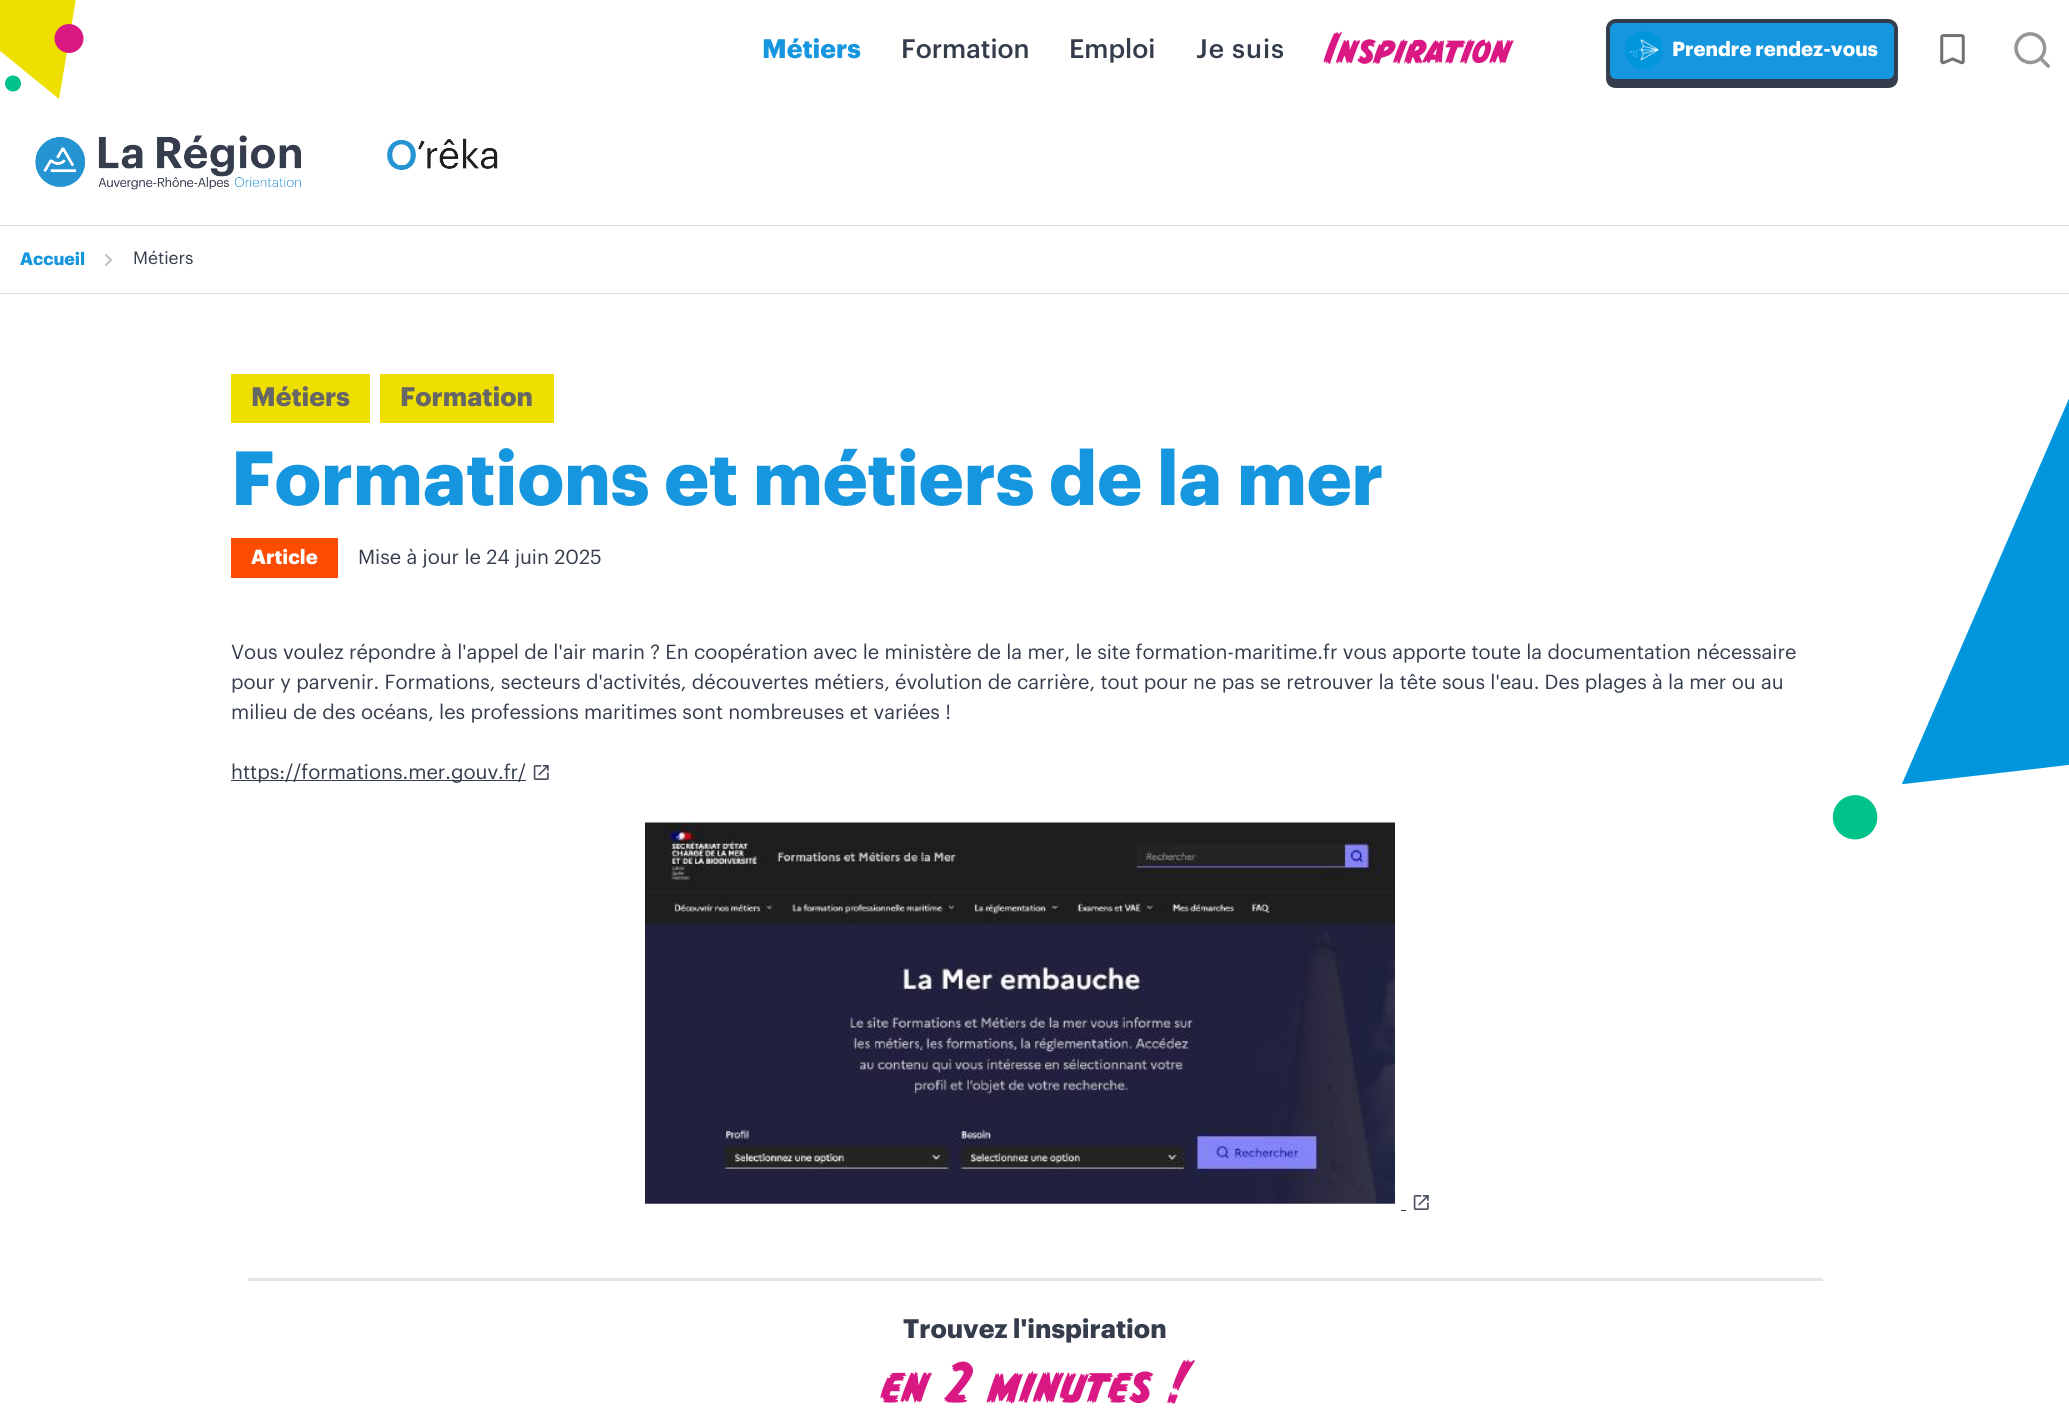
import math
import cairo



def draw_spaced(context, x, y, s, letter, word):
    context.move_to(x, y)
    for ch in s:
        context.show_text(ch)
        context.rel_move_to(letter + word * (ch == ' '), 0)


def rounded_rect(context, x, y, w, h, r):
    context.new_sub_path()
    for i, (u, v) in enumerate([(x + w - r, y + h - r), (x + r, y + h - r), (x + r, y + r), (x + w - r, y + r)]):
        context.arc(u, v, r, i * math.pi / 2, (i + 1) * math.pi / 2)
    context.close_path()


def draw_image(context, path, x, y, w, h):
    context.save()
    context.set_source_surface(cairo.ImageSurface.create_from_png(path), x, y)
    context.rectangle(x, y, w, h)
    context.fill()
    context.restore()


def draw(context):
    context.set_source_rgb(1, 1, 1)
    context.paint()
    draw_image(context, "images/1.png", 1832, 398, 237, 442)
    context.set_source_rgb(239 / 255, 223 / 255, 0)
    context.new_path()
    context.move_to(113, -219)
    context.line_to(59, 99)
    context.line_to(-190, -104)
    context.close_path()
    context.fill()
    context.set_source_rgb(218 / 255, 24 / 255, 132 / 255)
    context.arc(69, 38.5, 14.5, 0, 2 * math.pi)
    context.fill()
    context.set_source_rgb(0, 195 / 255, 137 / 255)
    context.arc(13, 83.5, 8, 0, 2 * math.pi)
    context.fill()
    context.set_source_rgb(53 / 255, 61 / 255, 77 / 255)
    context.new_path()
    context.move_to(1606, 32)
    context.line_to(1606, 78)
    context.curve_to(1606, 84, 1610, 88, 1616, 88)
    context.line_to(1888, 88)
    context.curve_to(1894, 88, 1898, 84, 1898, 78)
    context.line_to(1898, 34)
    context.line_to(1898, 31)
    context.line_to(1898, 72)
    context.curve_to(1898, 78, 1893, 82, 1888, 82)
    context.line_to(1616, 82)
    context.curve_to(1611, 82, 1606, 78, 1606, 72)
    context.close_path()
    context.fill()
    context.set_source_rgb(22 / 255, 150 / 255, 222 / 255)
    rounded_rect(context, 1608, 21, 288, 60, 8)
    context.fill_preserve()
    context.set_source_rgb(53 / 255, 61 / 255, 77 / 255)
    context.set_line_width(4)
    context.stroke()
    draw_image(context, "images/2.png", 1625, 31, 38, 38)
    draw_image(context, "images/3.png", 1940, 34, 25, 31)
    draw_image(context, "images/4.png", 2014, 32, 36, 36)
    draw_image(context, "images/5.png", 35, 135, 463, 55)
    context.set_source_rgb(221 / 255, 221 / 255, 221 / 255)
    context.rectangle(0, 225, 2069, 1)
    context.fill()
    context.rectangle(0, 293, 2069, 1)
    context.fill()
    context.save()
    context.rectangle(105, 254, 8, 12)
    context.clip()
    context.new_path()
    context.move_to(106, 265)
    context.line_to(111, 260)
    context.line_to(106, 255)
    context.set_source_rgb(200 / 255, 200 / 255, 200 / 255)
    context.set_line_width(2.5)
    context.set_line_cap(cairo.LineCap.ROUND)
    context.set_line_join(cairo.LineJoin.ROUND)
    context.stroke()
    context.restore()
    context.set_source_rgb(239 / 255, 223 / 255, 0)
    context.rectangle(231, 374, 139, 49)
    context.fill()
    context.rectangle(380, 374, 174, 49)
    context.fill()
    context.set_source_rgb(252 / 255, 76 / 255, 2 / 255)
    context.rectangle(231, 538, 107, 40)
    context.fill()
    context.set_source_rgb(53 / 255, 61 / 255, 77 / 255)
    context.rectangle(231, 780, 295, 1)
    context.fill()
    draw_image(context, "images/6.png", 533, 765, 16, 15)
    draw_image(context, "images/7.png", 645, 822, 750, 382)
    draw_image(context, "images/6.png", 1413, 1195, 16, 15)
    context.rectangle(1401, 1210, 5, 1)
    context.fill()
    context.set_source_rgb(229 / 255, 229 / 255, 229 / 255)
    context.rectangle(248, 1278, 1575, 3)
    context.fill()
    context.select_font_face("Graphik", cairo.FontSlant.NORMAL, cairo.FontWeight.BOLD)
    context.set_font_size(26.25)
    context.set_source_rgb(22 / 255, 150 / 255, 222 / 255)
    context.move_to(762, 58)
    context.show_text("Métiers")
    context.select_font_face("Graphik Medium")
    context.set_source_rgb(53 / 255, 61 / 255, 77 / 255)
    context.move_to(901, 58)
    context.show_text("Formation")
    context.move_to(1069, 58)
    context.show_text("Emploi")
    draw_spaced(context, 1196, 58, "Je suis", 1, 0)
    context.select_font_face("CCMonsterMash")
    context.set_font_size(38.75)
    context.set_source_rgb(218 / 255, 24 / 255, 132 / 255)
    context.move_to(1325, 63)
    context.show_text("Inspiration")
    context.select_font_face("Graphik", cairo.FontSlant.NORMAL, cairo.FontWeight.BOLD)
    context.set_font_size(20)
    context.set_source_rgb(1, 1, 1)
    context.move_to(1672, 56)
    context.show_text("Prendre rendez-vous")
    context.set_font_size(17.5)
    context.set_source_rgb(22 / 255, 150 / 255, 222 / 255)
    context.move_to(20, 265)
    context.show_text("Accueil")
    context.select_font_face("Graphik")
    context.set_source_rgb(53 / 255, 61 / 255, 77 / 255)
    context.move_to(133, 264)
    context.show_text("Métiers")
    context.select_font_face("Graphik", cairo.FontSlant.NORMAL, cairo.FontWeight.BOLD)
    context.set_font_size(26.25)
    context.set_source_rgb(102 / 255, 102 / 255, 102 / 255)
    context.move_to(251, 406)
    context.show_text("Métiers")
    context.move_to(400, 406)
    context.show_text("Formation")
    context.set_font_size(75)
    context.set_source_rgb(22 / 255, 150 / 255, 222 / 255)
    context.move_to(231, 505)
    context.show_text("Formations et métiers de la mer")
    context.set_font_size(20)
    context.set_source_rgb(1, 1, 1)
    context.move_to(251, 564)
    context.show_text("Article")
    context.select_font_face("Graphik")
    context.set_source_rgb(53 / 255, 61 / 255, 77 / 255)
    context.move_to(358, 564)
    context.show_text("Mise à jour le 24 juin 2025")
    context.move_to(231, 659)
    context.show_text("Vous voulez répondre à l'appel de l'air marin ? En coopération avec le ministère de la mer, le site formation-maritime.fr vous apporte toute la documentation nécessaire")
    context.move_to(231, 689)
    context.show_text("pour y parvenir. Formations, secteurs d'activités, découvertes métiers, évolution de carrière, tout pour ne pas se retrouver la tête sous l'eau. Des plages à la mer ou au")
    context.move_to(231, 719)
    context.show_text("milieu de des océans, les professions maritimes sont nombreuses et variées !")
    context.move_to(231, 779)
    context.show_text("https://formations.mer.gouv.fr/")
    context.select_font_face("Graphik", cairo.FontSlant.NORMAL, cairo.FontWeight.BOLD)
    context.set_font_size(26.25)
    context.move_to(903, 1338)
    context.show_text("Trouvez l'inspiration")
    context.select_font_face("CCMonsterMash")
    context.set_font_size(50)
    context.set_source_rgb(218 / 255, 24 / 255, 132 / 255)
    context.move_to(881, 1402)
    context.show_text("en 2 minutes !")


surface = cairo.ImageSurface(cairo.Format.RGB24, 2069, 1423)
context = cairo.Context(surface)
options = cairo.FontOptions()
options.set_hint_metrics(cairo.HintMetrics.OFF)
options.set_hint_style(cairo.HintStyle.NONE)
context.set_font_options(options)
context.set_miter_limit(4)
draw(context)
surface.write_to_png("out.png")
